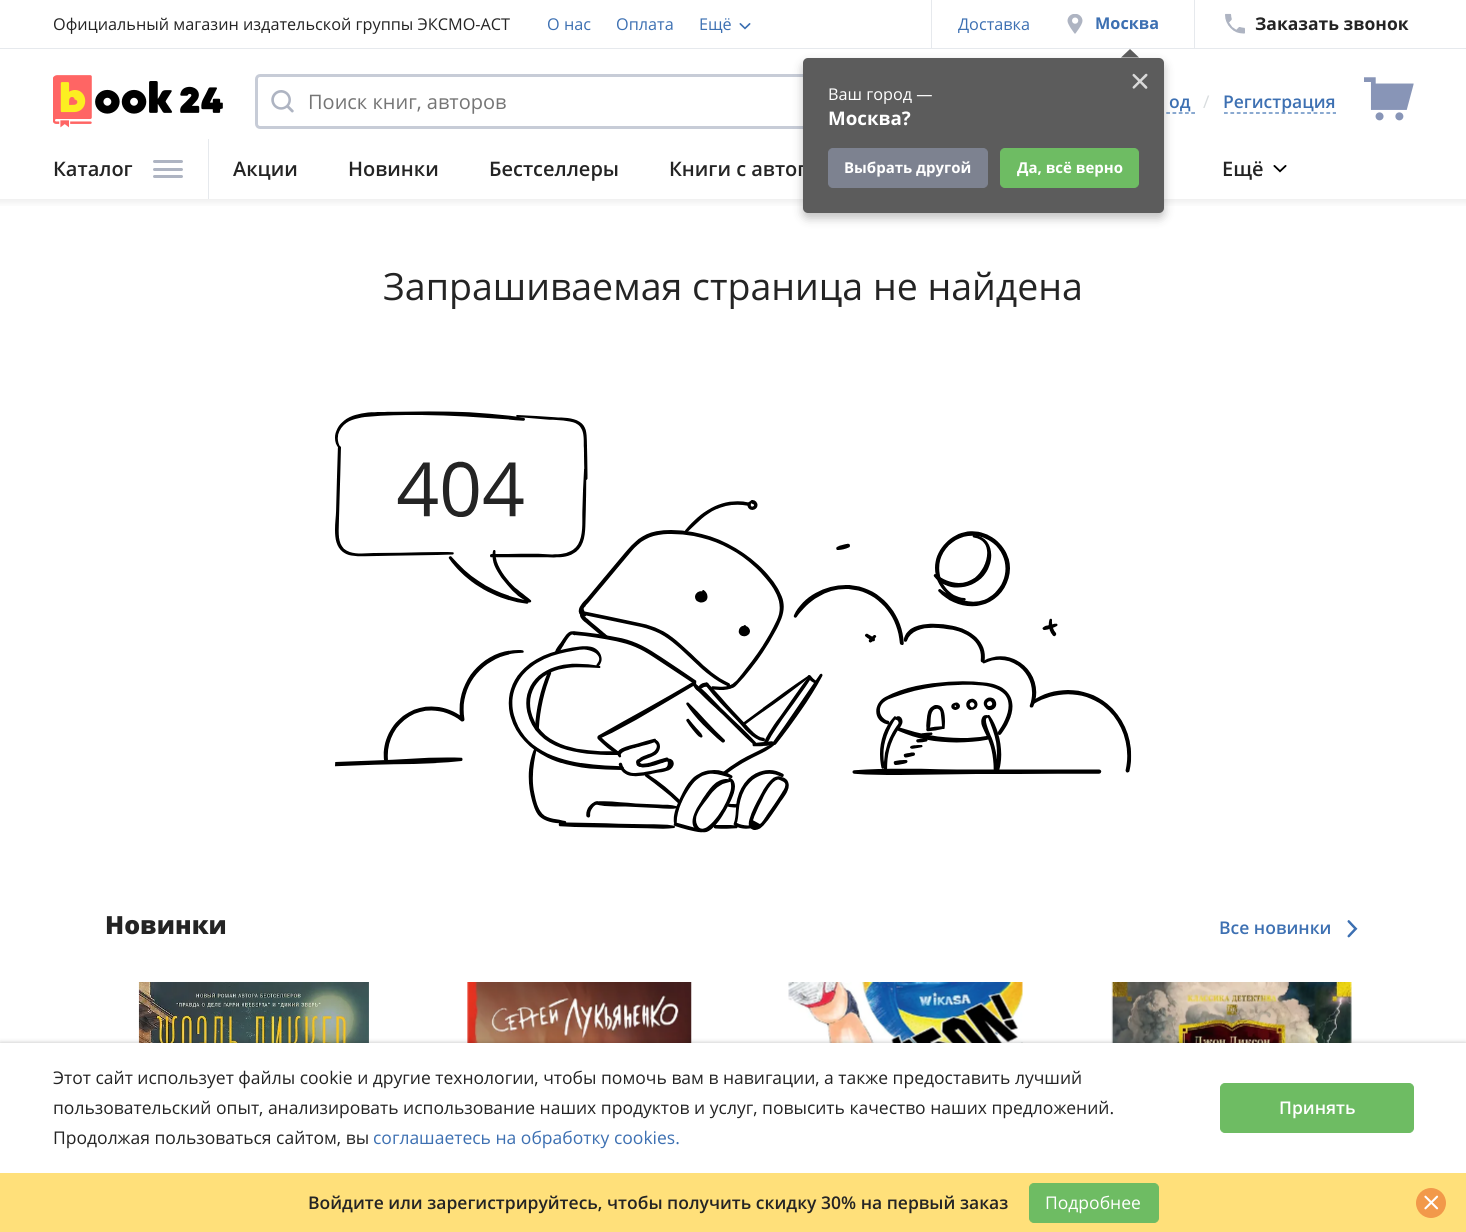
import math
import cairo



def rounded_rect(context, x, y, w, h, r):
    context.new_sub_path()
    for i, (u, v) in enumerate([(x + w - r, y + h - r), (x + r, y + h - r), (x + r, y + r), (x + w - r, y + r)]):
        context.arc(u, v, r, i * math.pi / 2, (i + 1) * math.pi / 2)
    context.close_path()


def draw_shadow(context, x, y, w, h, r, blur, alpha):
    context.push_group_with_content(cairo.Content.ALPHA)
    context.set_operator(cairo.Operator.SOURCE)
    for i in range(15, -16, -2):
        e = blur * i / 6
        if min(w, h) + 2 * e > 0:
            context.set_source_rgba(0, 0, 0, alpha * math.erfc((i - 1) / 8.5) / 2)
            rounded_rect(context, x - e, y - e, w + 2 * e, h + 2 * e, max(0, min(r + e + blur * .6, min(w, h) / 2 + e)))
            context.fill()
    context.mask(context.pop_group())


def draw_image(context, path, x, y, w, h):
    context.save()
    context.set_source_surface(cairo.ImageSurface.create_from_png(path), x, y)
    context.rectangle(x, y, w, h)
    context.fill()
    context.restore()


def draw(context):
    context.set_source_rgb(1, 1, 1)
    context.paint()
    context.set_source_rgb(230 / 255, 233 / 255, 237 / 255)
    context.rectangle(0, 48, 1466, 1)
    context.fill()
    draw_image(context, "images/1.png", 739, 23, 12, 7)
    context.rectangle(931, 0, 1, 48)
    context.fill()
    draw_image(context, "images/2.png", 1067, 14, 16, 20)
    rounded_rect(context, 256.5, 75.5, 852, 52, 3.5)
    context.set_source_rgb(199 / 255, 204 / 255, 215 / 255)
    context.set_line_width(3)
    context.stroke()
    context.new_path()
    context.move_to(1147.5, 113)
    context.line_to(1195, 113)
    context.set_source_rgb(61 / 255, 112 / 255, 178 / 255)
    context.set_line_width(1.2)
    context.set_dash([3.75, 2.5])
    context.stroke()
    gradient = cairo.LinearGradient(733, 199, 733, 213)
    gradient.add_color_stop_rgba(0, 240 / 255, 240 / 255, 240 / 255, 1)
    gradient.add_color_stop_rgba(0.62, 1, 1, 1, 1)
    context.set_source(gradient)
    context.rectangle(0, 199, 1466, 7)
    context.fill()
    context.set_source_rgb(0, 0, 0)
    draw_shadow(context, 803, 63, 361, 155, 5, 5, 0.25)
    context.set_source_rgb(92 / 255, 92 / 255, 92 / 255)
    context.new_path()
    context.move_to(1139, 57.5)
    context.line_to(1121, 57.5)
    context.line_to(1130, 49)
    context.close_path()
    context.fill()
    context.set_source_rgb(230 / 255, 233 / 255, 237 / 255)
    context.rectangle(1194, 0, 1, 48)
    context.fill()
    draw_image(context, "images/4.png", 1225, 13, 20, 21)
    draw_image(context, "images/5.png", 53, 75, 170, 53)
    draw_image(context, "images/6.png", 271, 90, 23, 23)
    context.new_path()
    context.move_to(1224, 113)
    context.line_to(1336, 113)
    context.set_source_rgb(61 / 255, 112 / 255, 178 / 255)
    context.set_dash([3.75, 2.65])
    context.stroke()
    draw_image(context, "images/7.png", 1364, 77, 50, 44)
    context.set_source_rgb(230 / 255, 233 / 255, 237 / 255)
    context.rectangle(208, 139, 1, 60)
    context.fill()
    context.set_source_rgb(174 / 255, 180 / 255, 194 / 255)
    rounded_rect(context, 153, 160, 30, 3, 1.5)
    context.fill()
    rounded_rect(context, 153, 168, 30, 3, 1.5)
    context.fill()
    rounded_rect(context, 153, 175, 30, 3, 1.5)
    context.fill()
    draw_image(context, "images/8.png", 1273, 165, 14, 8)
    draw_image(context, "images/9.png", 335, 411, 797, 422)
    draw_image(context, "images/10.png", 1347, 920, 11, 18)
    draw_image(context, "images/11.png", 138, 982, 231, 61)
    draw_image(context, "images/12.png", 467, 982, 225, 61)
    draw_image(context, "images/13.png", 788, 982, 235, 61)
    draw_image(context, "images/14.png", 1111, 982, 241, 61)
    context.set_source_rgb(0, 0, 0)
    draw_shadow(context, 0, 1043, 1466, 130, 0, 2.5, 0.25)
    context.set_source_rgb(1, 1, 1)
    context.rectangle(0, 1043, 1466, 130)
    context.fill()
    context.set_source_rgb(110 / 255, 188 / 255, 99 / 255)
    rounded_rect(context, 1220.5, 1083.5, 193, 49, 4.5)
    context.fill_preserve()
    context.set_line_width(1)
    context.set_dash([])
    context.stroke()
    context.set_source_rgb(1, 224 / 255, 122 / 255)
    context.rectangle(0, 1173, 1466, 59)
    context.fill()
    context.set_source_rgb(110 / 255, 188 / 255, 99 / 255)
    rounded_rect(context, 1029.5, 1183.5, 129, 39, 4.5)
    context.fill_preserve()
    context.stroke()
    context.set_source_rgb(242 / 255, 153 / 255, 74 / 255)
    context.arc(1431, 1203, 15, 0, 2 * math.pi)
    context.fill()
    draw_image(context, "images/15.png", 1424, 1195, 15, 15)
    context.select_font_face("Open Sans")
    context.set_font_size(16.25)
    context.set_source_rgb(36 / 255, 36 / 255, 36 / 255)
    context.move_to(53, 30)
    context.show_text("Официальный магазин издательской группы ЭКСМО-АСТ")
    context.set_source_rgb(61 / 255, 112 / 255, 178 / 255)
    context.move_to(547, 30)
    context.show_text("О нас")
    context.move_to(616, 30)
    context.show_text("Оплата")
    context.move_to(699, 30)
    context.show_text("Ещё")
    context.select_font_face("Open Sans", cairo.FontSlant.NORMAL, cairo.FontWeight.BOLD)
    context.move_to(1095, 29)
    context.show_text("Москва")
    context.set_font_size(17.5)
    context.set_source_rgb(36 / 255, 36 / 255, 36 / 255)
    context.move_to(1255, 30)
    context.show_text("Заказать звонок")
    context.select_font_face("Open Sans")
    context.set_font_size(16.25)
    context.set_source_rgb(61 / 255, 112 / 255, 178 / 255)
    context.move_to(958, 30)
    context.show_text("Доставка")
    context.set_font_size(20)
    context.set_source_rgb(117 / 255, 117 / 255, 117 / 255)
    context.move_to(308, 109)
    context.show_text("Поиск книг, авторов")
    context.select_font_face("Open Sans SemiBold")
    context.set_font_size(17.5)
    context.set_source_rgb(61 / 255, 112 / 255, 178 / 255)
    context.move_to(1169, 108)
    context.show_text("од")
    context.select_font_face("Open Sans")
    context.set_source_rgb(216 / 255, 220 / 255, 222 / 255)
    context.move_to(1203, 108)
    context.show_text("/")
    context.select_font_face("Open Sans SemiBold")
    context.set_source_rgb(61 / 255, 112 / 255, 178 / 255)
    context.move_to(1223, 108)
    context.show_text("Регистрация")
    context.set_font_size(20)
    context.set_source_rgb(36 / 255, 36 / 255, 36 / 255)
    context.move_to(53, 176)
    context.show_text("Каталог")
    context.move_to(233, 176)
    context.show_text("Акции")
    context.move_to(348, 176)
    context.show_text("Новинки")
    context.move_to(489, 176)
    context.show_text("Бестселлеры")
    context.move_to(669, 176)
    context.show_text("Книги с автог")
    context.set_source_rgb(92 / 255, 92 / 255, 92 / 255)
    rounded_rect(context, 803, 58, 361, 155, 5)
    context.fill()
    context.set_source_rgb(110 / 255, 188 / 255, 99 / 255)
    rounded_rect(context, 1000.5, 148.5, 138, 39, 4.5)
    context.fill_preserve()
    context.stroke()
    context.select_font_face("Open Sans", cairo.FontSlant.NORMAL, cairo.FontWeight.BOLD)
    context.set_font_size(15)
    context.set_source_rgb(1, 1, 1)
    context.move_to(1017, 173)
    context.show_text("Да, всё верно")
    context.set_source_rgb(125 / 255, 130 / 255, 144 / 255)
    rounded_rect(context, 828.5, 148.5, 159, 39, 4.5)
    context.fill_preserve()
    context.stroke()
    context.set_source_rgb(1, 1, 1)
    context.move_to(844, 173)
    context.show_text("Выбрать другой")
    draw_image(context, "images/3.png", 1132, 73, 16, 16)
    context.set_font_size(18.75)
    context.move_to(828, 125)
    context.show_text("Москва?")
    context.select_font_face("Open Sans")
    context.set_font_size(16.25)
    context.move_to(828, 100)
    context.show_text("Ваш город —")
    context.select_font_face("Open Sans SemiBold")
    context.set_font_size(20)
    context.set_source_rgb(36 / 255, 36 / 255, 36 / 255)
    context.move_to(1222, 176)
    context.show_text("Ещё")
    context.select_font_face("Open Sans")
    context.set_font_size(37.5)
    context.move_to(383, 300)
    context.show_text("Запрашиваемая страница не найдена")
    context.select_font_face("Open Sans ExtraBold")
    context.set_font_size(25)
    context.move_to(105, 934)
    context.show_text("Новинки")
    context.select_font_face("Open Sans SemiBold")
    context.set_font_size(17.5)
    context.set_source_rgb(61 / 255, 112 / 255, 178 / 255)
    context.move_to(1219, 934)
    context.show_text("Все новинки")
    context.select_font_face("Open Sans")
    context.set_source_rgb(36 / 255, 36 / 255, 36 / 255)
    context.move_to(53, 1084)
    context.show_text("Этот сайт использует файлы cookie и другие технологии, чтобы помочь вам в навигации, а также предоставить лучший")
    context.move_to(53, 1114)
    context.show_text("пользовательский опыт, анализировать использование наших продуктов и услуг, повысить качество наших предложений.")
    context.move_to(53, 1144)
    context.show_text("Продолжая пользоваться сайтом, вы")
    context.set_source_rgb(61 / 255, 112 / 255, 178 / 255)
    context.move_to(373, 1144)
    context.show_text("соглашаетесь на обработку cookies.")
    context.select_font_face("Open Sans SemiBold")
    context.set_source_rgb(1, 1, 1)
    context.move_to(1279, 1114)
    context.show_text("Принять")
    context.set_source_rgb(36 / 255, 36 / 255, 36 / 255)
    context.move_to(308, 1209)
    context.show_text("Войдите или зарегистрируйтесь, чтобы получить скидку 30% на первый заказ")
    context.select_font_face("Open Sans")
    context.set_source_rgb(1, 1, 1)
    context.move_to(1045, 1209)
    context.show_text("Подробнее")


surface = cairo.ImageSurface(cairo.Format.RGB24, 1466, 1232)
context = cairo.Context(surface)
options = cairo.FontOptions()
options.set_hint_metrics(cairo.HintMetrics.OFF)
options.set_hint_style(cairo.HintStyle.NONE)
context.set_font_options(options)
context.set_miter_limit(4)
draw(context)
surface.write_to_png("out.png")
